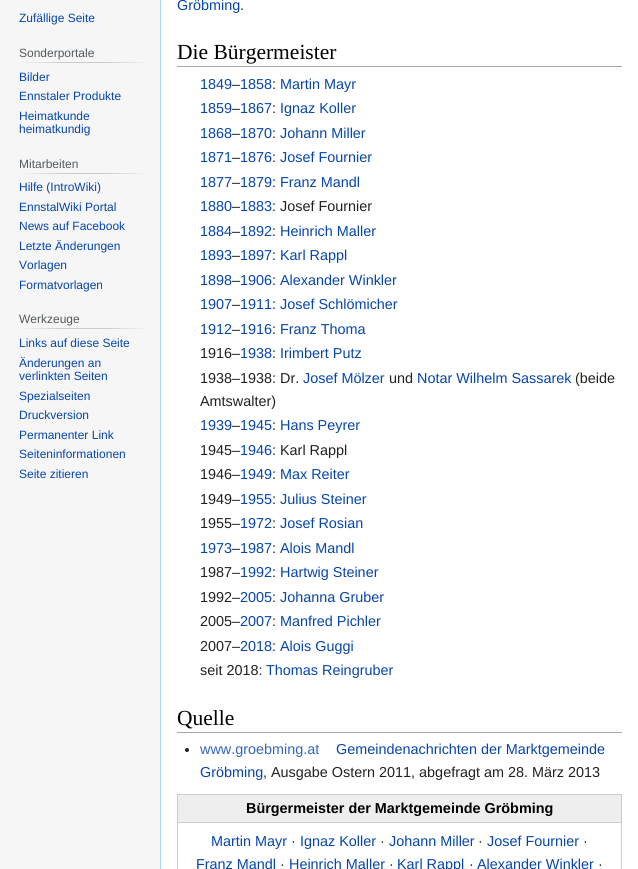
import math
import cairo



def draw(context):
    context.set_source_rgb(246 / 255, 246 / 255, 246 / 255)
    context.paint()
    gradient = cairo.LinearGradient(19, 63, 150, 62)
    gradient.add_color_stop_rgba(0, 246 / 255, 246 / 255, 246 / 255, 1)
    gradient.add_color_stop_rgba(0.33, 200 / 255, 204 / 255, 209 / 255, 1)
    gradient.add_color_stop_rgba(0.66, 200 / 255, 204 / 255, 209 / 255, 1)
    gradient.add_color_stop_rgba(1, 246 / 255, 246 / 255, 246 / 255, 1)
    context.set_source(gradient)
    context.rectangle(19, 62, 131, 1)
    context.fill()
    gradient = cairo.LinearGradient(19, 174, 150, 174)
    gradient.add_color_stop_rgba(0, 246 / 255, 246 / 255, 246 / 255, 1)
    gradient.add_color_stop_rgba(0.33, 200 / 255, 204 / 255, 209 / 255, 1)
    gradient.add_color_stop_rgba(0.66, 200 / 255, 204 / 255, 209 / 255, 1)
    gradient.add_color_stop_rgba(1, 246 / 255, 246 / 255, 246 / 255, 1)
    context.set_source(gradient)
    context.rectangle(19, 173, 131, 1)
    context.fill()
    gradient = cairo.LinearGradient(19, 329, 150, 329)
    gradient.add_color_stop_rgba(0, 246 / 255, 246 / 255, 246 / 255, 1)
    gradient.add_color_stop_rgba(0.33, 200 / 255, 204 / 255, 209 / 255, 1)
    gradient.add_color_stop_rgba(0.66, 200 / 255, 204 / 255, 209 / 255, 1)
    gradient.add_color_stop_rgba(1, 246 / 255, 246 / 255, 246 / 255, 1)
    context.set_source(gradient)
    context.rectangle(19, 328, 131, 1)
    context.fill()
    context.set_source_rgb(1, 1, 1)
    context.rectangle(161, 0, 477, 869)
    context.fill()
    context.set_source_rgb(167 / 255, 215 / 255, 249 / 255)
    context.rectangle(160, 0, 1, 869)
    context.fill()
    context.set_source_rgb(162 / 255, 169 / 255, 177 / 255)
    context.rectangle(177, 66, 445, 1)
    context.fill()
    context.rectangle(177, 732, 445, 1)
    context.fill()
    context.set_source_rgb(32 / 255, 33 / 255, 34 / 255)
    context.arc(187, 750, 2, 0, 2 * math.pi)
    context.fill()
    context.set_source_rgb(238 / 255, 238 / 255, 238 / 255)
    context.rectangle(178, 795, 443, 27)
    context.fill()
    context.set_source_rgb(204 / 255, 204 / 255, 204 / 255)
    context.rectangle(177, 794, 445, 1)
    context.fill()
    context.rectangle(621, 794, 1, 28)
    context.fill()
    context.rectangle(177, 794, 1, 28)
    context.fill()
    context.rectangle(177.5, 822.5, 444, 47)
    context.set_line_width(1)
    context.stroke()
    context.select_font_face("Liberation Sans")
    context.set_font_size(12)
    context.set_source_rgb(6 / 255, 69 / 255, 173 / 255)
    context.move_to(19, 22)
    context.show_text("Zufällige Seite")
    context.set_source_rgb(84 / 255, 89 / 255, 93 / 255)
    context.move_to(19, 57)
    context.show_text("Sonderportale")
    context.set_source_rgb(6 / 255, 69 / 255, 173 / 255)
    context.move_to(19, 81)
    context.show_text("Bilder")
    context.move_to(19, 100)
    context.show_text("Ennstaler Produkte")
    context.move_to(19, 120)
    context.show_text("Heimatkunde")
    context.move_to(19, 133)
    context.show_text("heimatkundig")
    context.set_source_rgb(84 / 255, 89 / 255, 93 / 255)
    context.move_to(19, 168)
    context.show_text("Mitarbeiten")
    context.set_source_rgb(6 / 255, 69 / 255, 173 / 255)
    context.move_to(19, 191)
    context.show_text("Hilfe (IntroWiki)")
    context.move_to(19, 211)
    context.show_text("EnnstalWiki Portal")
    context.move_to(19, 230)
    context.show_text("News auf Facebook")
    context.move_to(19, 250)
    context.show_text("Letzte Änderungen")
    context.move_to(19, 269)
    context.show_text("Vorlagen")
    context.move_to(19, 289)
    context.show_text("Formatvorlagen")
    context.set_source_rgb(84 / 255, 89 / 255, 93 / 255)
    context.move_to(19, 323)
    context.show_text("Werkzeuge")
    context.set_source_rgb(6 / 255, 69 / 255, 173 / 255)
    context.move_to(19, 347)
    context.show_text("Links auf diese Seite")
    context.move_to(19, 367)
    context.show_text("Änderungen an")
    context.move_to(19, 380)
    context.show_text("verlinkten Seiten")
    context.move_to(19, 400)
    context.show_text("Spezialseiten")
    context.move_to(19, 419)
    context.show_text("Druckversion")
    context.move_to(19, 439)
    context.show_text("Permanenter Link")
    context.move_to(19, 458)
    context.show_text("Seiteninformationen")
    context.move_to(19, 478)
    context.show_text("Seite zitieren")
    context.set_font_size(14.4)
    context.move_to(177, 10)
    context.show_text("Gröbming")
    context.set_source_rgb(32 / 255, 33 / 255, 34 / 255)
    context.move_to(240, 10)
    context.show_text(".")
    context.select_font_face("Liberation Serif")
    context.set_font_size(21.5)
    context.set_source_rgb(0, 0, 0)
    context.move_to(177, 59)
    context.show_text("Die Bürgermeister")
    context.select_font_face("Liberation Sans")
    context.set_font_size(14.4)
    context.set_source_rgb(6 / 255, 69 / 255, 173 / 255)
    context.move_to(200, 89)
    context.show_text("1849")
    context.set_source_rgb(32 / 255, 33 / 255, 34 / 255)
    context.move_to(232, 89)
    context.show_text("–")
    context.set_source_rgb(6 / 255, 69 / 255, 173 / 255)
    context.move_to(240, 89)
    context.show_text("1858")
    context.set_source_rgb(32 / 255, 33 / 255, 34 / 255)
    context.move_to(272, 89)
    context.show_text(":")
    context.set_source_rgb(6 / 255, 69 / 255, 173 / 255)
    context.move_to(280, 89)
    context.show_text("Martin Mayr")
    context.move_to(200, 113)
    context.show_text("1859")
    context.set_source_rgb(32 / 255, 33 / 255, 34 / 255)
    context.move_to(232, 113)
    context.show_text("–")
    context.set_source_rgb(6 / 255, 69 / 255, 173 / 255)
    context.move_to(240, 113)
    context.show_text("1867")
    context.set_source_rgb(32 / 255, 33 / 255, 34 / 255)
    context.move_to(272, 113)
    context.show_text(":")
    context.set_source_rgb(6 / 255, 69 / 255, 173 / 255)
    context.move_to(280, 113)
    context.show_text("Ignaz Koller")
    context.move_to(200, 138)
    context.show_text("1868")
    context.set_source_rgb(32 / 255, 33 / 255, 34 / 255)
    context.move_to(232, 138)
    context.show_text("–")
    context.set_source_rgb(6 / 255, 69 / 255, 173 / 255)
    context.move_to(240, 138)
    context.show_text("1870")
    context.set_source_rgb(32 / 255, 33 / 255, 34 / 255)
    context.move_to(272, 138)
    context.show_text(":")
    context.set_source_rgb(6 / 255, 69 / 255, 173 / 255)
    context.move_to(280, 138)
    context.show_text("Johann Miller")
    context.move_to(200, 162)
    context.show_text("1871")
    context.set_source_rgb(32 / 255, 33 / 255, 34 / 255)
    context.move_to(232, 162)
    context.show_text("–")
    context.set_source_rgb(6 / 255, 69 / 255, 173 / 255)
    context.move_to(240, 162)
    context.show_text("1876")
    context.set_source_rgb(32 / 255, 33 / 255, 34 / 255)
    context.move_to(272, 162)
    context.show_text(":")
    context.set_source_rgb(6 / 255, 69 / 255, 173 / 255)
    context.move_to(280, 162)
    context.show_text("Josef Fournier")
    context.move_to(200, 187)
    context.show_text("1877")
    context.set_source_rgb(32 / 255, 33 / 255, 34 / 255)
    context.move_to(232, 187)
    context.show_text("–")
    context.set_source_rgb(6 / 255, 69 / 255, 173 / 255)
    context.move_to(240, 187)
    context.show_text("1879")
    context.set_source_rgb(32 / 255, 33 / 255, 34 / 255)
    context.move_to(272, 187)
    context.show_text(":")
    context.set_source_rgb(6 / 255, 69 / 255, 173 / 255)
    context.move_to(280, 187)
    context.show_text("Franz Mandl")
    context.move_to(200, 211)
    context.show_text("1880")
    context.set_source_rgb(32 / 255, 33 / 255, 34 / 255)
    context.move_to(232, 211)
    context.show_text("–")
    context.set_source_rgb(6 / 255, 69 / 255, 173 / 255)
    context.move_to(240, 211)
    context.show_text("1883")
    context.set_source_rgb(32 / 255, 33 / 255, 34 / 255)
    context.move_to(272, 211)
    context.show_text(": Josef Fournier")
    context.set_source_rgb(6 / 255, 69 / 255, 173 / 255)
    context.move_to(200, 236)
    context.show_text("1884")
    context.set_source_rgb(32 / 255, 33 / 255, 34 / 255)
    context.move_to(232, 236)
    context.show_text("–")
    context.set_source_rgb(6 / 255, 69 / 255, 173 / 255)
    context.move_to(240, 236)
    context.show_text("1892")
    context.set_source_rgb(32 / 255, 33 / 255, 34 / 255)
    context.move_to(272, 236)
    context.show_text(":")
    context.set_source_rgb(6 / 255, 69 / 255, 173 / 255)
    context.move_to(280, 236)
    context.show_text("Heinrich Maller")
    context.move_to(200, 260)
    context.show_text("1893")
    context.set_source_rgb(32 / 255, 33 / 255, 34 / 255)
    context.move_to(232, 260)
    context.show_text("–")
    context.set_source_rgb(6 / 255, 69 / 255, 173 / 255)
    context.move_to(240, 260)
    context.show_text("1897")
    context.set_source_rgb(32 / 255, 33 / 255, 34 / 255)
    context.move_to(272, 260)
    context.show_text(":")
    context.set_source_rgb(6 / 255, 69 / 255, 173 / 255)
    context.move_to(280, 260)
    context.show_text("Karl Rappl")
    context.move_to(200, 285)
    context.show_text("1898")
    context.set_source_rgb(32 / 255, 33 / 255, 34 / 255)
    context.move_to(232, 285)
    context.show_text("–")
    context.set_source_rgb(6 / 255, 69 / 255, 173 / 255)
    context.move_to(240, 285)
    context.show_text("1906")
    context.set_source_rgb(32 / 255, 33 / 255, 34 / 255)
    context.move_to(272, 285)
    context.show_text(":")
    context.set_source_rgb(6 / 255, 69 / 255, 173 / 255)
    context.move_to(280, 285)
    context.show_text("Alexander Winkler")
    context.move_to(200, 309)
    context.show_text("1907")
    context.set_source_rgb(32 / 255, 33 / 255, 34 / 255)
    context.move_to(232, 309)
    context.show_text("–")
    context.set_source_rgb(6 / 255, 69 / 255, 173 / 255)
    context.move_to(240, 309)
    context.show_text("1911")
    context.set_source_rgb(32 / 255, 33 / 255, 34 / 255)
    context.move_to(272, 309)
    context.show_text(":")
    context.set_source_rgb(6 / 255, 69 / 255, 173 / 255)
    context.move_to(280, 309)
    context.show_text("Josef Schlömicher")
    context.move_to(200, 334)
    context.show_text("1912")
    context.set_source_rgb(32 / 255, 33 / 255, 34 / 255)
    context.move_to(232, 334)
    context.show_text("–")
    context.set_source_rgb(6 / 255, 69 / 255, 173 / 255)
    context.move_to(240, 334)
    context.show_text("1916")
    context.set_source_rgb(32 / 255, 33 / 255, 34 / 255)
    context.move_to(272, 334)
    context.show_text(":")
    context.set_source_rgb(6 / 255, 69 / 255, 173 / 255)
    context.move_to(280, 334)
    context.show_text("Franz Thoma")
    context.set_source_rgb(32 / 255, 33 / 255, 34 / 255)
    context.move_to(200, 358)
    context.show_text("1916–")
    context.set_source_rgb(6 / 255, 69 / 255, 173 / 255)
    context.move_to(240, 358)
    context.show_text("1938")
    context.set_source_rgb(32 / 255, 33 / 255, 34 / 255)
    context.move_to(272, 358)
    context.show_text(":")
    context.set_source_rgb(6 / 255, 69 / 255, 173 / 255)
    context.move_to(280, 358)
    context.show_text("Irimbert Putz")
    context.set_source_rgb(32 / 255, 33 / 255, 34 / 255)
    context.move_to(200, 383)
    context.show_text("1938–1938: Dr.")
    context.set_source_rgb(6 / 255, 69 / 255, 173 / 255)
    context.move_to(303, 383)
    context.show_text("Josef Mölzer")
    context.set_source_rgb(32 / 255, 33 / 255, 34 / 255)
    context.move_to(389, 383)
    context.show_text("und")
    context.set_source_rgb(6 / 255, 69 / 255, 173 / 255)
    context.move_to(417, 383)
    context.show_text("Notar Wilhelm Sassarek")
    context.set_source_rgb(32 / 255, 33 / 255, 34 / 255)
    context.move_to(575, 383)
    context.show_text("(beide")
    context.move_to(200, 406)
    context.show_text("Amtswalter)")
    context.set_source_rgb(6 / 255, 69 / 255, 173 / 255)
    context.move_to(200, 430)
    context.show_text("1939")
    context.set_source_rgb(32 / 255, 33 / 255, 34 / 255)
    context.move_to(232, 430)
    context.show_text("–")
    context.set_source_rgb(6 / 255, 69 / 255, 173 / 255)
    context.move_to(240, 430)
    context.show_text("1945")
    context.set_source_rgb(32 / 255, 33 / 255, 34 / 255)
    context.move_to(272, 430)
    context.show_text(":")
    context.set_source_rgb(6 / 255, 69 / 255, 173 / 255)
    context.move_to(280, 430)
    context.show_text("Hans Peyrer")
    context.set_source_rgb(32 / 255, 33 / 255, 34 / 255)
    context.move_to(200, 455)
    context.show_text("1945–")
    context.set_source_rgb(6 / 255, 69 / 255, 173 / 255)
    context.move_to(240, 455)
    context.show_text("1946")
    context.set_source_rgb(32 / 255, 33 / 255, 34 / 255)
    context.move_to(272, 455)
    context.show_text(": Karl Rappl")
    context.move_to(200, 479)
    context.show_text("1946–")
    context.set_source_rgb(6 / 255, 69 / 255, 173 / 255)
    context.move_to(240, 479)
    context.show_text("1949")
    context.set_source_rgb(32 / 255, 33 / 255, 34 / 255)
    context.move_to(272, 479)
    context.show_text(":")
    context.set_source_rgb(6 / 255, 69 / 255, 173 / 255)
    context.move_to(280, 479)
    context.show_text("Max Reiter")
    context.set_source_rgb(32 / 255, 33 / 255, 34 / 255)
    context.move_to(200, 504)
    context.show_text("1949–")
    context.set_source_rgb(6 / 255, 69 / 255, 173 / 255)
    context.move_to(240, 504)
    context.show_text("1955")
    context.set_source_rgb(32 / 255, 33 / 255, 34 / 255)
    context.move_to(272, 504)
    context.show_text(":")
    context.set_source_rgb(6 / 255, 69 / 255, 173 / 255)
    context.move_to(280, 504)
    context.show_text("Julius Steiner")
    context.set_source_rgb(32 / 255, 33 / 255, 34 / 255)
    context.move_to(200, 528)
    context.show_text("1955–")
    context.set_source_rgb(6 / 255, 69 / 255, 173 / 255)
    context.move_to(240, 528)
    context.show_text("1972")
    context.set_source_rgb(32 / 255, 33 / 255, 34 / 255)
    context.move_to(272, 528)
    context.show_text(":")
    context.set_source_rgb(6 / 255, 69 / 255, 173 / 255)
    context.move_to(280, 528)
    context.show_text("Josef Rosian")
    context.move_to(200, 553)
    context.show_text("1973")
    context.set_source_rgb(32 / 255, 33 / 255, 34 / 255)
    context.move_to(232, 553)
    context.show_text("–")
    context.set_source_rgb(6 / 255, 69 / 255, 173 / 255)
    context.move_to(240, 553)
    context.show_text("1987")
    context.set_source_rgb(32 / 255, 33 / 255, 34 / 255)
    context.move_to(272, 553)
    context.show_text(":")
    context.set_source_rgb(6 / 255, 69 / 255, 173 / 255)
    context.move_to(280, 553)
    context.show_text("Alois Mandl")
    context.set_source_rgb(32 / 255, 33 / 255, 34 / 255)
    context.move_to(200, 577)
    context.show_text("1987–")
    context.set_source_rgb(6 / 255, 69 / 255, 173 / 255)
    context.move_to(240, 577)
    context.show_text("1992")
    context.set_source_rgb(32 / 255, 33 / 255, 34 / 255)
    context.move_to(272, 577)
    context.show_text(":")
    context.set_source_rgb(6 / 255, 69 / 255, 173 / 255)
    context.move_to(280, 577)
    context.show_text("Hartwig Steiner")
    context.set_source_rgb(32 / 255, 33 / 255, 34 / 255)
    context.move_to(200, 602)
    context.show_text("1992–")
    context.set_source_rgb(6 / 255, 69 / 255, 173 / 255)
    context.move_to(240, 602)
    context.show_text("2005")
    context.set_source_rgb(32 / 255, 33 / 255, 34 / 255)
    context.move_to(272, 602)
    context.show_text(":")
    context.set_source_rgb(6 / 255, 69 / 255, 173 / 255)
    context.move_to(280, 602)
    context.show_text("Johanna Gruber")
    context.set_source_rgb(32 / 255, 33 / 255, 34 / 255)
    context.move_to(200, 626)
    context.show_text("2005–")
    context.set_source_rgb(6 / 255, 69 / 255, 173 / 255)
    context.move_to(240, 626)
    context.show_text("2007")
    context.set_source_rgb(32 / 255, 33 / 255, 34 / 255)
    context.move_to(272, 626)
    context.show_text(":")
    context.set_source_rgb(6 / 255, 69 / 255, 173 / 255)
    context.move_to(280, 626)
    context.show_text("Manfred Pichler")
    context.set_source_rgb(32 / 255, 33 / 255, 34 / 255)
    context.move_to(200, 651)
    context.show_text("2007–")
    context.set_source_rgb(6 / 255, 69 / 255, 173 / 255)
    context.move_to(240, 651)
    context.show_text("2018")
    context.set_source_rgb(32 / 255, 33 / 255, 34 / 255)
    context.move_to(272, 651)
    context.show_text(":")
    context.set_source_rgb(6 / 255, 69 / 255, 173 / 255)
    context.move_to(280, 651)
    context.show_text("Alois Guggi")
    context.set_source_rgb(32 / 255, 33 / 255, 34 / 255)
    context.move_to(200, 675)
    context.show_text("seit 2018:")
    context.set_source_rgb(6 / 255, 69 / 255, 173 / 255)
    context.move_to(266, 675)
    context.show_text("Thomas Reingruber")
    context.select_font_face("Liberation Serif")
    context.set_font_size(21.5)
    context.set_source_rgb(0, 0, 0)
    context.move_to(177, 725)
    context.show_text("Quelle")
    context.select_font_face("Liberation Sans")
    context.set_font_size(14.4)
    context.set_source_rgb(51 / 255, 102 / 255, 187 / 255)
    context.move_to(200, 754)
    context.show_text("www.groebming.at")
    context.set_source_rgb(6 / 255, 69 / 255, 173 / 255)
    context.move_to(336, 754)
    context.show_text("Gemeindenachrichten der Marktgemeinde")
    context.move_to(200, 777)
    context.show_text("Gröbming")
    context.set_source_rgb(32 / 255, 33 / 255, 34 / 255)
    context.move_to(263, 777)
    context.show_text(", Ausgabe Ostern 2011, abgefragt am 28. März 2013")
    context.select_font_face("Liberation Sans", cairo.FontSlant.NORMAL, cairo.FontWeight.BOLD)
    context.set_source_rgb(0, 0, 0)
    context.move_to(246, 813)
    context.show_text("Bürgermeister der Marktgemeinde Gröbming")
    context.select_font_face("Liberation Sans")
    context.set_source_rgb(6 / 255, 69 / 255, 173 / 255)
    context.move_to(211, 846)
    context.show_text("Martin Mayr")
    context.set_source_rgb(32 / 255, 33 / 255, 34 / 255)
    context.move_to(291, 846)
    context.show_text("·")
    context.set_source_rgb(6 / 255, 69 / 255, 173 / 255)
    context.move_to(300, 846)
    context.show_text("Ignaz Koller")
    context.set_source_rgb(32 / 255, 33 / 255, 34 / 255)
    context.move_to(380, 846)
    context.show_text("·")
    context.set_source_rgb(6 / 255, 69 / 255, 173 / 255)
    context.move_to(389, 846)
    context.show_text("Johann Miller")
    context.set_source_rgb(32 / 255, 33 / 255, 34 / 255)
    context.move_to(478, 846)
    context.show_text("·")
    context.set_source_rgb(6 / 255, 69 / 255, 173 / 255)
    context.move_to(487, 846)
    context.show_text("Josef Fournier")
    context.set_source_rgb(32 / 255, 33 / 255, 34 / 255)
    context.move_to(583, 846)
    context.show_text("·")
    context.set_source_rgb(6 / 255, 69 / 255, 173 / 255)
    context.move_to(196, 869)
    context.show_text("Franz Mandl")
    context.set_source_rgb(32 / 255, 33 / 255, 34 / 255)
    context.move_to(280, 869)
    context.show_text("·")
    context.set_source_rgb(6 / 255, 69 / 255, 173 / 255)
    context.move_to(289, 869)
    context.show_text("Heinrich Maller")
    context.set_source_rgb(32 / 255, 33 / 255, 34 / 255)
    context.move_to(389, 869)
    context.show_text("·")
    context.set_source_rgb(6 / 255, 69 / 255, 173 / 255)
    context.move_to(397, 869)
    context.show_text("Karl Rappl")
    context.set_source_rgb(32 / 255, 33 / 255, 34 / 255)
    context.move_to(469, 869)
    context.show_text("·")
    context.set_source_rgb(6 / 255, 69 / 255, 173 / 255)
    context.move_to(477, 869)
    context.show_text("Alexander Winkler")
    context.set_source_rgb(32 / 255, 33 / 255, 34 / 255)
    context.move_to(598, 869)
    context.show_text("·")


surface = cairo.ImageSurface(cairo.Format.RGB24, 638, 869)
context = cairo.Context(surface)
options = cairo.FontOptions()
options.set_hint_metrics(cairo.HintMetrics.OFF)
options.set_hint_style(cairo.HintStyle.NONE)
context.set_font_options(options)
context.set_miter_limit(4)
draw(context)
surface.write_to_png("out.png")
